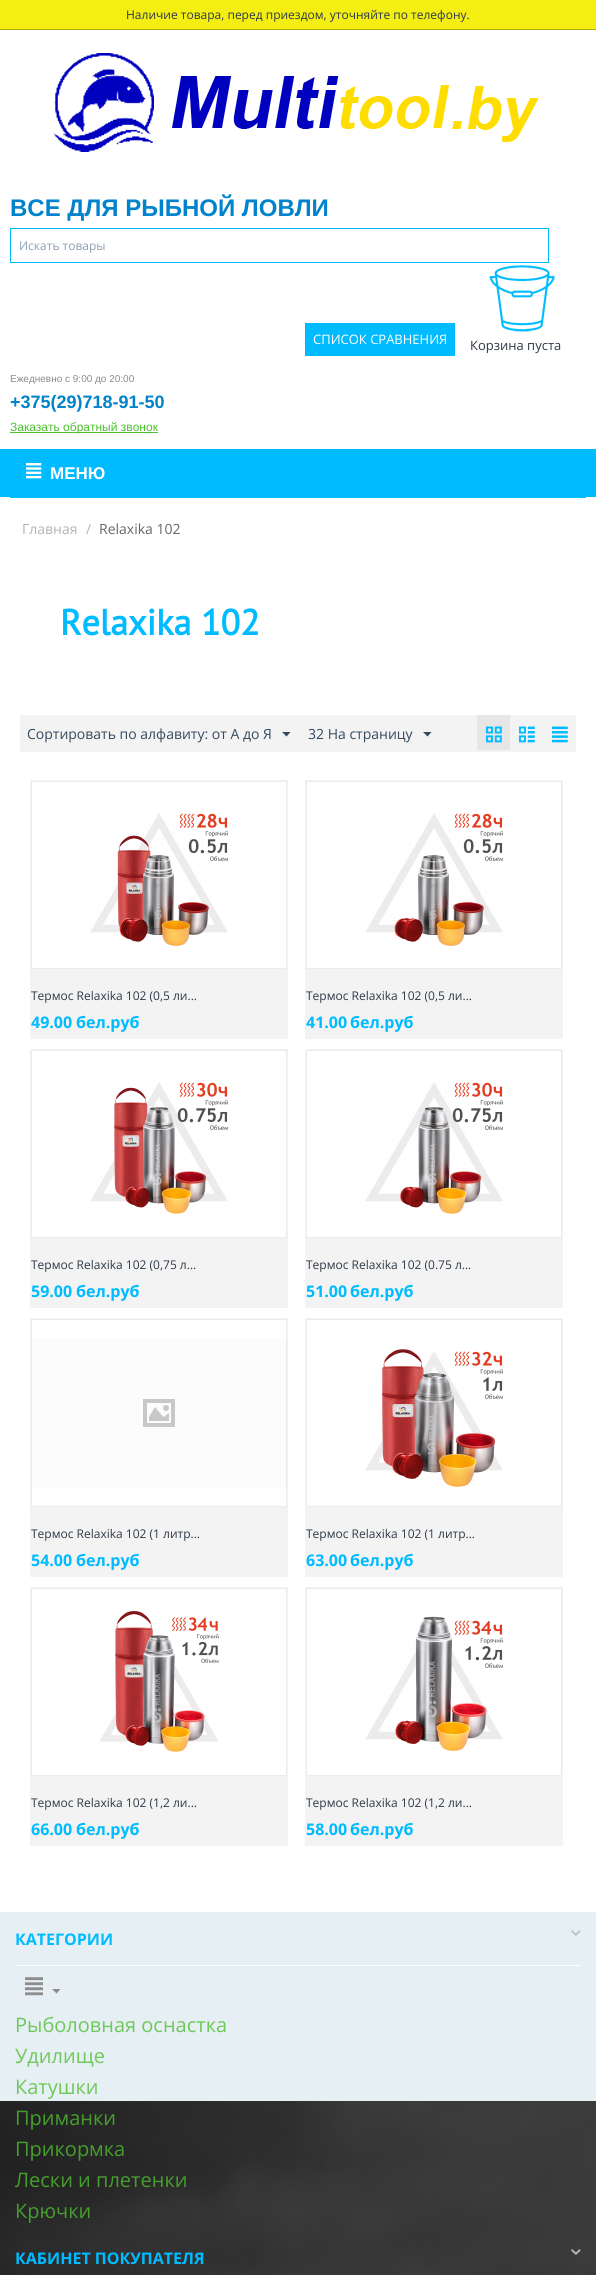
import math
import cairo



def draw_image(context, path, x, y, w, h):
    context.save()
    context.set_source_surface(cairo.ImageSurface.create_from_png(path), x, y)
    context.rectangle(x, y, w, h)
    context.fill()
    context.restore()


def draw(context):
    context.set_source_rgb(244 / 255, 238 / 255, 18 / 255)
    context.paint()
    context.set_source_rgb(177 / 255, 173 / 255, 8 / 255)
    context.rectangle(0, 29, 596, 1)
    context.fill()
    context.set_source_rgb(1, 1, 1)
    context.rectangle(0, 30, 596, 1882)
    context.fill()
    draw_image(context, "images/1.png", 54, 53, 485, 99)
    context.rectangle(10.5, 228.5, 538, 34)
    context.set_source_rgb(0, 187 / 255, 1)
    context.set_line_width(1)
    context.stroke()
    context.rectangle(305, 323, 150, 33)
    context.fill()
    draw_image(context, "images/2.png", 489, 265, 66, 67)
    context.set_source_rgb(79 / 255, 190 / 255, 49 / 255)
    context.rectangle(10, 432, 148, 1)
    context.fill()
    context.set_source_rgb(0, 187 / 255, 1)
    context.rectangle(0, 449, 596, 48)
    context.fill()
    context.rectangle(10, 497, 576, 1)
    context.fill()
    draw_image(context, "images/3.png", 26, 463, 16, 16)
    context.set_source_rgb(243 / 255, 243 / 255, 243 / 255)
    context.rectangle(20, 715, 556, 37)
    context.fill()
    context.set_source_rgb(52 / 255, 73 / 255, 94 / 255)
    context.new_path()
    context.move_to(286.5, 736.5)
    context.line_to(282, 732)
    context.line_to(290.5, 732)
    context.close_path()
    context.fill()
    context.new_path()
    context.move_to(427.5, 736.5)
    context.line_to(423, 732)
    context.line_to(431.5, 732)
    context.close_path()
    context.fill()
    context.set_source_rgb(230 / 255, 230 / 255, 230 / 255)
    context.rectangle(477, 715, 33, 35)
    context.fill()
    draw_image(context, "images/4.png", 486, 726, 16, 17)
    draw_image(context, "images/5.png", 519, 726, 16, 17)
    draw_image(context, "images/6.png", 552, 726, 16, 17)
    context.set_source_rgb(243 / 255, 243 / 255, 243 / 255)
    context.rectangle(30, 780, 258, 259)
    context.fill()
    context.set_source_rgb(1, 1, 1)
    context.rectangle(31.5, 781.5, 255, 187)
    context.fill_preserve()
    context.set_source_rgb(235 / 255, 235 / 255, 235 / 255)
    context.stroke()
    draw_image(context, "images/7.png", 90, 813, 138, 133)
    context.set_source_rgb(243 / 255, 243 / 255, 243 / 255)
    context.rectangle(305, 780, 258, 259)
    context.fill()
    context.set_source_rgb(1, 1, 1)
    context.rectangle(306.5, 781.5, 255, 187)
    context.fill_preserve()
    context.set_source_rgb(235 / 255, 235 / 255, 235 / 255)
    context.stroke()
    draw_image(context, "images/8.png", 365, 813, 138, 133)
    context.set_source_rgb(243 / 255, 243 / 255, 243 / 255)
    context.rectangle(30, 1049, 258, 259)
    context.fill()
    context.set_source_rgb(1, 1, 1)
    context.rectangle(31.5, 1050.5, 255, 187)
    context.fill_preserve()
    context.set_source_rgb(235 / 255, 235 / 255, 235 / 255)
    context.stroke()
    draw_image(context, "images/9.png", 90, 1082, 138, 132)
    context.set_source_rgb(243 / 255, 243 / 255, 243 / 255)
    context.rectangle(305, 1049, 258, 259)
    context.fill()
    context.set_source_rgb(1, 1, 1)
    context.rectangle(306.5, 1050.5, 255, 187)
    context.fill_preserve()
    context.set_source_rgb(235 / 255, 235 / 255, 235 / 255)
    context.stroke()
    draw_image(context, "images/10.png", 365, 1082, 138, 132)
    context.set_source_rgb(243 / 255, 243 / 255, 243 / 255)
    context.rectangle(30, 1318, 258, 259)
    context.fill()
    context.set_source_rgb(1, 1, 1)
    context.rectangle(31.5, 1319.5, 255, 187)
    context.fill_preserve()
    context.set_source_rgb(235 / 255, 235 / 255, 235 / 255)
    context.stroke()
    context.set_source_rgb(252 / 255, 252 / 255, 252 / 255)
    context.rectangle(32, 1338, 254, 150)
    context.fill()
    draw_image(context, "images/11.png", 143, 1399, 32, 28)
    context.set_source_rgb(243 / 255, 243 / 255, 243 / 255)
    context.rectangle(305, 1318, 258, 259)
    context.fill()
    context.set_source_rgb(1, 1, 1)
    context.rectangle(306.5, 1319.5, 255, 187)
    context.fill_preserve()
    context.set_source_rgb(235 / 255, 235 / 255, 235 / 255)
    context.stroke()
    draw_image(context, "images/12.png", 365, 1349, 138, 138)
    context.set_source_rgb(243 / 255, 243 / 255, 243 / 255)
    context.rectangle(30, 1587, 258, 259)
    context.fill()
    context.set_source_rgb(1, 1, 1)
    context.rectangle(31.5, 1588.5, 255, 187)
    context.fill_preserve()
    context.set_source_rgb(235 / 255, 235 / 255, 235 / 255)
    context.stroke()
    draw_image(context, "images/13.png", 99, 1611, 120, 141)
    context.set_source_rgb(243 / 255, 243 / 255, 243 / 255)
    context.rectangle(305, 1587, 258, 259)
    context.fill()
    context.set_source_rgb(1, 1, 1)
    context.rectangle(306.5, 1588.5, 255, 187)
    context.fill_preserve()
    context.set_source_rgb(235 / 255, 235 / 255, 235 / 255)
    context.stroke()
    draw_image(context, "images/14.png", 365, 1616, 138, 135)
    context.set_source_rgb(230 / 255, 239 / 255, 244 / 255)
    context.rectangle(0, 1912, 596, 189)
    context.fill()
    draw_image(context, "images/15.png", 0, 2101, 596, 174)
    context.set_source_rgb(1, 1, 1)
    context.rectangle(15, 1965, 566, 1)
    context.fill()
    draw_image(context, "images/16.png", 571, 1930, 10, 6)
    draw_image(context, "images/17.png", 25, 1977, 18, 19)
    context.set_source_rgb(141 / 255, 141 / 255, 141 / 255)
    context.new_path()
    context.move_to(56.5, 1993.5)
    context.line_to(52, 1989)
    context.line_to(60.5, 1989)
    context.close_path()
    context.fill()
    draw_image(context, "images/18.png", 571, 2249, 10, 6)
    context.select_font_face("Open Sans")
    context.set_font_size(12)
    context.set_source_rgb(46 / 255, 58 / 255, 71 / 255)
    context.move_to(126, 19)
    context.show_text("Наличие товара, перед приездом, уточняйте по телефону.")
    context.select_font_face("Liberation Sans", cairo.FontSlant.NORMAL, cairo.FontWeight.BOLD)
    context.set_font_size(24)
    context.set_source_rgb(0, 131 / 255, 204 / 255)
    context.move_to(10, 216)
    context.show_text("ВСЕ ДЛЯ РЫБНОЙ ЛОВЛИ")
    context.select_font_face("Open Sans")
    context.set_font_size(12)
    context.set_source_rgb(140 / 255, 160 / 255, 181 / 255)
    context.move_to(19, 250)
    context.show_text("Искать товары")
    context.set_font_size(13)
    context.set_source_rgb(1, 1, 1)
    context.move_to(313, 344)
    context.show_text("СПИСОК СРАВНЕНИЯ")
    context.set_source_rgb(46 / 255, 58 / 255, 71 / 255)
    context.move_to(470, 350)
    context.show_text("Корзина пуста")
    context.select_font_face("Liberation Sans")
    context.set_font_size(10)
    context.set_source_rgb(141 / 255, 140 / 255, 140 / 255)
    context.move_to(10, 382)
    context.show_text("Ежедневно с 9:00 до 20:00")
    context.select_font_face("Liberation Sans", cairo.FontSlant.NORMAL, cairo.FontWeight.BOLD)
    context.set_font_size(18)
    context.set_source_rgb(0, 131 / 255, 204 / 255)
    context.move_to(10, 408)
    context.show_text("+375(29)718-91-50")
    context.select_font_face("Liberation Sans")
    context.set_font_size(12)
    context.set_source_rgb(79 / 255, 190 / 255, 49 / 255)
    context.move_to(10, 431)
    context.show_text("Заказать обратный звонок")
    context.select_font_face("Liberation Sans", cairo.FontSlant.NORMAL, cairo.FontWeight.BOLD)
    context.set_font_size(17)
    context.set_source_rgb(1, 1, 1)
    context.move_to(50, 479)
    context.show_text("МЕНЮ")
    context.select_font_face("Open Sans")
    context.set_font_size(14)
    context.set_source_rgb(179 / 255, 179 / 255, 179 / 255)
    context.move_to(22, 534)
    context.show_text("Главная")
    context.move_to(86, 534)
    context.show_text("/")
    context.set_source_rgb(102 / 255, 102 / 255, 102 / 255)
    context.move_to(99, 534)
    context.show_text("Relaxika 102")
    context.select_font_face("PT Sans", cairo.FontSlant.NORMAL, cairo.FontWeight.BOLD)
    context.set_font_size(36)
    context.set_source_rgb(0, 187 / 255, 1)
    context.move_to(60, 635)
    context.show_text("Relaxika 102")
    context.select_font_face("Open Sans")
    context.set_font_size(14)
    context.set_source_rgb(52 / 255, 73 / 255, 94 / 255)
    context.move_to(27, 739)
    context.show_text("Сортировать по алфавиту: от А до Я")
    context.move_to(308, 739)
    context.show_text("32 На страницу")
    context.set_font_size(12)
    context.set_source_rgb(46 / 255, 58 / 255, 71 / 255)
    context.move_to(31, 1000)
    context.show_text("Термос Relaxika 102 (0,5 ли...")
    context.select_font_face("Open Sans", cairo.FontSlant.NORMAL, cairo.FontWeight.BOLD)
    context.set_font_size(16)
    context.set_source_rgb(0, 187 / 255, 1)
    context.move_to(31, 1028)
    context.show_text("49.00")
    context.move_to(76, 1028)
    context.show_text("бел.руб")
    context.select_font_face("Open Sans")
    context.set_font_size(12)
    context.set_source_rgb(46 / 255, 58 / 255, 71 / 255)
    context.move_to(306, 1000)
    context.show_text("Термос Relaxika 102 (0,5 ли...")
    context.select_font_face("Open Sans", cairo.FontSlant.NORMAL, cairo.FontWeight.BOLD)
    context.set_font_size(16)
    context.set_source_rgb(0, 187 / 255, 1)
    context.move_to(306, 1028)
    context.show_text("41.00")
    context.move_to(350, 1028)
    context.show_text("бел.руб")
    context.select_font_face("Open Sans")
    context.set_font_size(12)
    context.set_source_rgb(46 / 255, 58 / 255, 71 / 255)
    context.move_to(31, 1269)
    context.show_text("Термос Relaxika 102 (0,75 л...")
    context.select_font_face("Open Sans", cairo.FontSlant.NORMAL, cairo.FontWeight.BOLD)
    context.set_font_size(16)
    context.set_source_rgb(0, 187 / 255, 1)
    context.move_to(31, 1297)
    context.show_text("59.00")
    context.move_to(76, 1297)
    context.show_text("бел.руб")
    context.select_font_face("Open Sans")
    context.set_font_size(12)
    context.set_source_rgb(46 / 255, 58 / 255, 71 / 255)
    context.move_to(306, 1269)
    context.show_text("Термос Relaxika 102 (0.75 л...")
    context.select_font_face("Open Sans", cairo.FontSlant.NORMAL, cairo.FontWeight.BOLD)
    context.set_font_size(16)
    context.set_source_rgb(0, 187 / 255, 1)
    context.move_to(306, 1297)
    context.show_text("51.00")
    context.move_to(350, 1297)
    context.show_text("бел.руб")
    context.select_font_face("Open Sans")
    context.set_font_size(12)
    context.set_source_rgb(46 / 255, 58 / 255, 71 / 255)
    context.move_to(31, 1538)
    context.show_text("Термос Relaxika 102 (1 литр...")
    context.select_font_face("Open Sans", cairo.FontSlant.NORMAL, cairo.FontWeight.BOLD)
    context.set_font_size(16)
    context.set_source_rgb(0, 187 / 255, 1)
    context.move_to(31, 1566)
    context.show_text("54.00")
    context.move_to(76, 1566)
    context.show_text("бел.руб")
    context.select_font_face("Open Sans")
    context.set_font_size(12)
    context.set_source_rgb(46 / 255, 58 / 255, 71 / 255)
    context.move_to(306, 1538)
    context.show_text("Термос Relaxika 102 (1 литр...")
    context.select_font_face("Open Sans", cairo.FontSlant.NORMAL, cairo.FontWeight.BOLD)
    context.set_font_size(16)
    context.set_source_rgb(0, 187 / 255, 1)
    context.move_to(306, 1566)
    context.show_text("63.00")
    context.move_to(350, 1566)
    context.show_text("бел.руб")
    context.select_font_face("Open Sans")
    context.set_font_size(12)
    context.set_source_rgb(46 / 255, 58 / 255, 71 / 255)
    context.move_to(31, 1807)
    context.show_text("Термос Relaxika 102 (1,2 ли...")
    context.select_font_face("Open Sans", cairo.FontSlant.NORMAL, cairo.FontWeight.BOLD)
    context.set_font_size(16)
    context.set_source_rgb(0, 187 / 255, 1)
    context.move_to(31, 1835)
    context.show_text("66.00")
    context.move_to(76, 1835)
    context.show_text("бел.руб")
    context.select_font_face("Open Sans")
    context.set_font_size(12)
    context.set_source_rgb(46 / 255, 58 / 255, 71 / 255)
    context.move_to(306, 1807)
    context.show_text("Термос Relaxika 102 (1,2 ли...")
    context.select_font_face("Open Sans", cairo.FontSlant.NORMAL, cairo.FontWeight.BOLD)
    context.set_font_size(16)
    context.set_source_rgb(0, 187 / 255, 1)
    context.move_to(306, 1835)
    context.show_text("58.00")
    context.move_to(350, 1835)
    context.show_text("бел.руб")
    context.move_to(15, 1945)
    context.show_text("КАТЕГОРИИ")
    context.select_font_face("Open Sans")
    context.set_font_size(20)
    context.set_source_rgb(111 / 255, 200 / 255, 90 / 255)
    context.move_to(15, 2032)
    context.show_text("Рыболовная оснастка")
    context.move_to(15, 2063)
    context.show_text("Удилище")
    context.move_to(15, 2094)
    context.show_text("Катушки")
    context.set_source_rgb(70 / 255, 158 / 255, 46 / 255)
    context.move_to(15, 2125)
    context.show_text("Приманки")
    context.move_to(15, 2156)
    context.show_text("Прикормка")
    context.move_to(15, 2187)
    context.show_text("Лески и плетенки")
    context.move_to(15, 2218)
    context.show_text("Крючки")
    context.select_font_face("Open Sans", cairo.FontSlant.NORMAL, cairo.FontWeight.BOLD)
    context.set_font_size(16)
    context.set_source_rgb(0, 187 / 255, 1)
    context.move_to(15, 2264)
    context.show_text("КАБИНЕТ ПОКУПАТЕЛЯ")


surface = cairo.ImageSurface(cairo.Format.RGB24, 596, 2275)
context = cairo.Context(surface)
options = cairo.FontOptions()
options.set_hint_metrics(cairo.HintMetrics.OFF)
options.set_hint_style(cairo.HintStyle.NONE)
context.set_font_options(options)
context.set_miter_limit(4)
draw(context)
surface.write_to_png("out.png")
